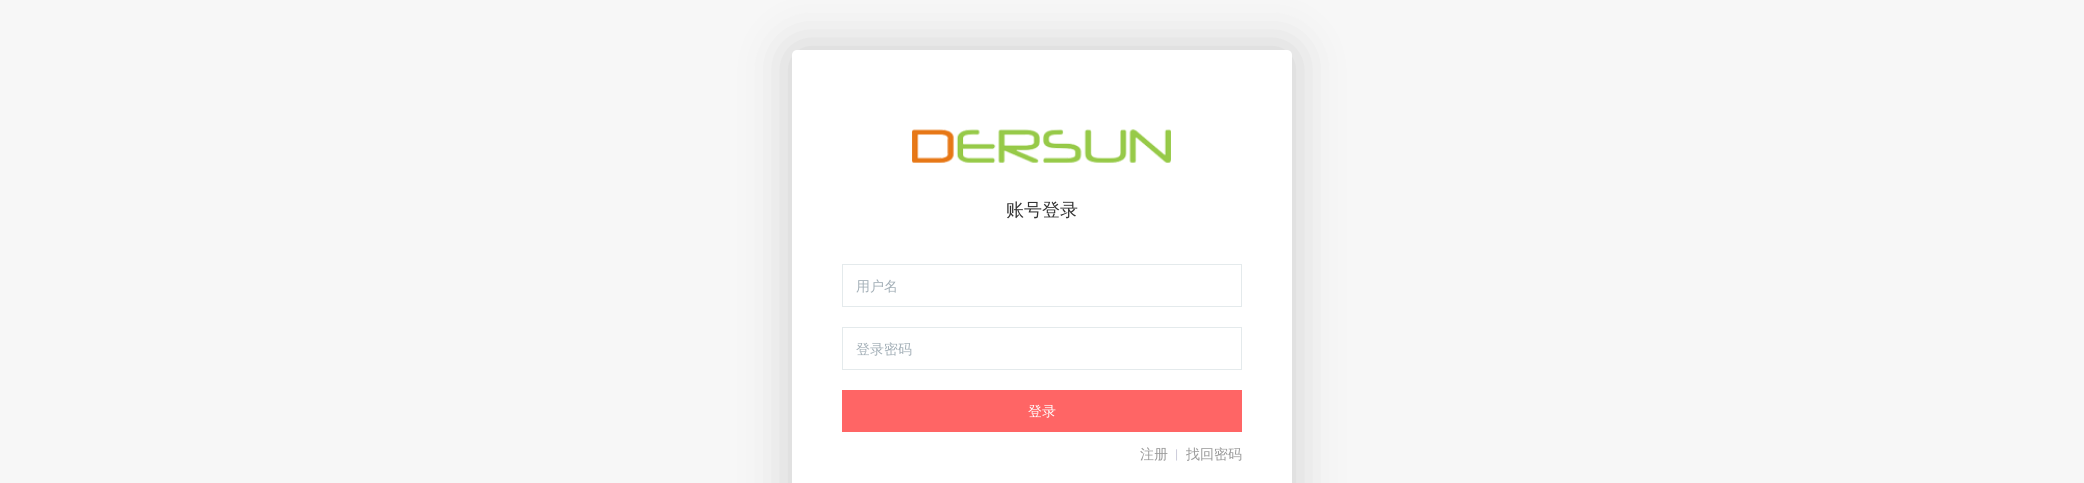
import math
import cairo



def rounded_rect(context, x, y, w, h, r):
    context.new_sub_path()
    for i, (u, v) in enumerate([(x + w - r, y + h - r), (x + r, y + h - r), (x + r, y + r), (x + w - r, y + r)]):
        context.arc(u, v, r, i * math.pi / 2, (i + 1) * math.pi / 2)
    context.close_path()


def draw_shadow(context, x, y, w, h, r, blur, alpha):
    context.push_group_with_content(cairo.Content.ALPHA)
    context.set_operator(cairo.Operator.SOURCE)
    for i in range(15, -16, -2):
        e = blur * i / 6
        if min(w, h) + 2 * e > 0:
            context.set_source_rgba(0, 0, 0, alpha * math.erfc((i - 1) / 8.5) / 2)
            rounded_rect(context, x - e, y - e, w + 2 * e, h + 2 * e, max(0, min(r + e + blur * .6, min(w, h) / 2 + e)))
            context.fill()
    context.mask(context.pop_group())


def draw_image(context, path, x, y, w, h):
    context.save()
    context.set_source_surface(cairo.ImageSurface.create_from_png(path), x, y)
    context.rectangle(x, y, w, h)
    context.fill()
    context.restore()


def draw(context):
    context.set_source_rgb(247 / 255, 247 / 255, 247 / 255)
    context.paint()
    context.set_source_rgb(204 / 255, 204 / 255, 204 / 255)
    draw_shadow(context, 792, 50, 500, 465, 5, 25, 1)
    context.set_source_rgb(1, 1, 1)
    rounded_rect(context, 792, 50, 500, 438, 5)
    context.fill()
    draw_image(context, "images/1.png", 912, 129, 259, 34)
    context.rectangle(842.5, 264.5, 399, 42)
    context.set_source_rgb(228 / 255, 234 / 255, 236 / 255)
    context.set_line_width(1)
    context.stroke()
    context.rectangle(842.5, 327.5, 399, 42)
    context.stroke()
    context.set_source_rgb(1, 101 / 255, 101 / 255)
    context.rectangle(842, 390, 400, 42)
    context.fill()
    context.select_font_face("WenQuanYi Zen Hei Medium")
    context.set_font_size(18)
    context.set_source_rgb(51 / 255, 51 / 255, 51 / 255)
    context.move_to(1006, 216)
    context.show_text("账号登录")
    context.set_font_size(14)
    context.set_source_rgb(163 / 255, 175 / 255, 183 / 255)
    context.move_to(856, 291)
    context.show_text("用户名")
    context.move_to(856, 354)
    context.show_text("登录密码")
    context.set_source_rgb(1, 1, 1)
    context.move_to(1028, 416)
    context.show_text("登录")
    context.set_source_rgb(153 / 255, 153 / 255, 153 / 255)
    context.move_to(1140, 459)
    context.show_text("注册")
    context.select_font_face("Liberation Sans")
    context.set_font_size(12)
    context.set_source_rgb(202 / 255, 202 / 255, 217 / 255)
    context.move_to(1175, 458)
    context.show_text("|")
    context.select_font_face("WenQuanYi Zen Hei Medium")
    context.set_font_size(14)
    context.set_source_rgb(153 / 255, 153 / 255, 153 / 255)
    context.move_to(1186, 459)
    context.show_text("找回密码")


surface = cairo.ImageSurface(cairo.Format.RGB24, 2084, 483)
context = cairo.Context(surface)
options = cairo.FontOptions()
options.set_hint_metrics(cairo.HintMetrics.OFF)
options.set_hint_style(cairo.HintStyle.NONE)
context.set_font_options(options)
context.set_miter_limit(4)
draw(context)
surface.write_to_png("out.png")
